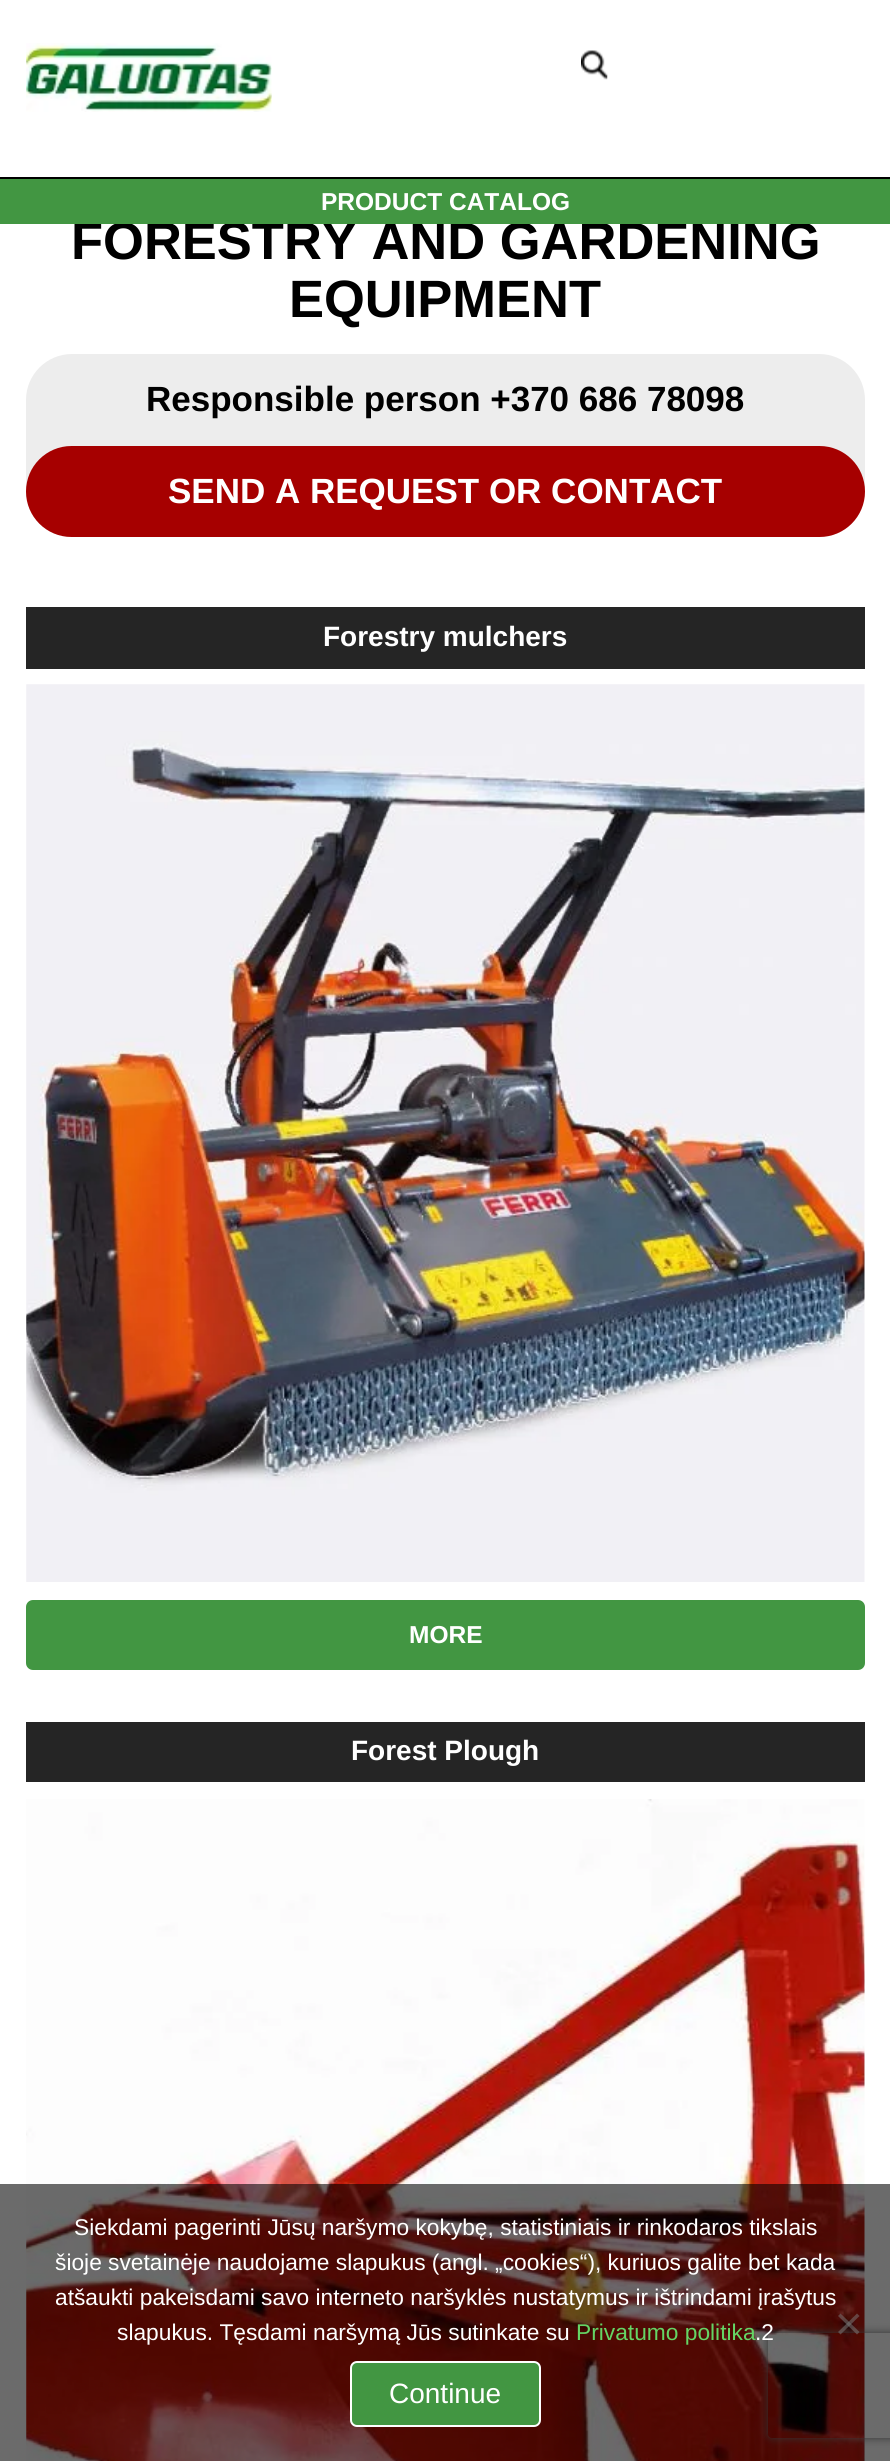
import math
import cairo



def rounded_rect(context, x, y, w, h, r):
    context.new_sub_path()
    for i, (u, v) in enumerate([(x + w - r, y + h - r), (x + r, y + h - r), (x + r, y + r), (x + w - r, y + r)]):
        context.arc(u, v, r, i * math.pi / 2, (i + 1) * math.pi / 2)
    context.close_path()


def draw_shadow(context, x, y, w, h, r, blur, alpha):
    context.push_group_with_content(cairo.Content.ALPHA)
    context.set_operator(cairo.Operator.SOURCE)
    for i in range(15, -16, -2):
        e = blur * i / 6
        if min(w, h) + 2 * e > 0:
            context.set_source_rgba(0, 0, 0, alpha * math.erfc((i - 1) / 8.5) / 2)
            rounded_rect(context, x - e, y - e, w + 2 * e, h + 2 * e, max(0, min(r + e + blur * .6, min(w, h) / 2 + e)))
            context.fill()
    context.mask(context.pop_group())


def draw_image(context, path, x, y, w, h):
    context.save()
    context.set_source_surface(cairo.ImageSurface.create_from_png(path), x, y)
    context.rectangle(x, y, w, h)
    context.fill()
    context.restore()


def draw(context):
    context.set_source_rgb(1, 1, 1)
    context.paint()
    context.set_source_rgb(0, 0, 0)
    context.rectangle(0, 177, 890, 2)
    context.fill()
    draw_image(context, "images/1.png", 26, 43, 246, 69)
    draw_image(context, "images/2.png", 581, 50, 27, 30)
    context.set_source_rgb(237 / 255, 237 / 255, 237 / 255)
    rounded_rect(context, 26, 354, 839, 183, 46)
    context.fill()
    context.set_source_rgb(166 / 255, 0, 0)
    rounded_rect(context, 26, 446, 839, 91, 45.5)
    context.fill()
    context.set_source_rgb(37 / 255, 37 / 255, 37 / 255)
    context.rectangle(26, 607, 839, 62)
    context.fill()
    draw_image(context, "images/3.png", 26, 684, 839, 898)
    context.set_source_rgb(66 / 255, 150 / 255, 66 / 255)
    rounded_rect(context, 26, 1600, 839, 70, 7)
    context.fill()
    context.set_source_rgb(37 / 255, 37 / 255, 37 / 255)
    context.rectangle(26, 1722, 839, 60)
    context.fill()
    draw_image(context, "images/4.png", 26, 1799, 839, 662)
    context.save()
    context.set_fill_rule(cairo.FillRule.EVEN_ODD)
    context.new_path()
    context.move_to(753, 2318)
    context.line_to(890, 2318)
    context.line_to(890, 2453)
    context.line_to(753, 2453)
    context.close_path()
    context.move_to(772, 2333)
    context.line_to(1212, 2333)
    context.curve_to(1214, 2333, 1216, 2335, 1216, 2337)
    context.line_to(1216, 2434)
    context.curve_to(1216, 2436, 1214, 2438, 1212, 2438)
    context.line_to(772, 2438)
    context.curve_to(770, 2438, 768, 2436, 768, 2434)
    context.line_to(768, 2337)
    context.curve_to(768, 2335, 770, 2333, 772, 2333)
    context.close_path()
    context.clip()
    context.set_source_rgb(128 / 255, 128 / 255, 128 / 255)
    draw_shadow(context, 768, 2333, 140, 105, 4, 4.5, 1)
    context.restore()
    context.set_source_rgba(0, 0, 0, 0.58)
    context.rectangle(0, 2184, 890, 277)
    context.fill()
    context.set_source_rgba(128 / 255, 128 / 255, 128 / 255, 0.5)
    context.new_path()
    context.move_to(857, 2313.5)
    context.line_to(859.5, 2316)
    context.line_to(840.5, 2334.5)
    context.line_to(838, 2332)
    context.close_path()
    context.fill()
    context.new_path()
    context.move_to(838, 2316)
    context.line_to(840.5, 2313.5)
    context.line_to(859.5, 2332)
    context.line_to(857, 2334.5)
    context.close_path()
    context.fill()
    context.set_source_rgb(66 / 255, 150 / 255, 66 / 255)
    rounded_rect(context, 351, 2362, 189, 64, 6)
    context.fill_preserve()
    context.set_source_rgb(1, 1, 1)
    context.stroke()
    context.select_font_face("Arimo", cairo.FontSlant.NORMAL, cairo.FontWeight.BOLD)
    context.set_font_size(52.5)
    context.set_source_rgb(0, 0, 0)
    context.move_to(71, 259)
    context.show_text("FORESTRY AND GARDENING")
    context.set_source_rgb(66 / 255, 150 / 255, 66 / 255)
    context.rectangle(0, 179, 890, 45)
    context.fill()
    context.set_font_size(24.5)
    context.set_source_rgb(1, 1, 1)
    context.move_to(321, 210)
    context.show_text("PRODUCT CATALOG")
    context.set_font_size(52.5)
    context.set_source_rgb(0, 0, 0)
    context.move_to(289, 317)
    context.show_text("EQUIPMENT")
    context.set_font_size(35)
    context.move_to(146, 411)
    context.show_text("Responsible person +370 686 78098")
    context.set_source_rgb(1, 1, 1)
    context.move_to(168, 503)
    context.show_text("SEND A REQUEST OR CONTACT")
    context.set_font_size(28)
    context.move_to(323, 646)
    context.show_text("Forestry mulchers")
    context.set_font_size(24.5)
    context.move_to(409, 1643)
    context.show_text("MORE")
    context.set_font_size(28)
    context.move_to(351, 1760)
    context.show_text("Forest Plough")
    context.select_font_face("Liberation Sans")
    context.set_font_size(22.75)
    context.move_to(74, 2235)
    context.show_text("Siekdami pagerinti Jūsų naršymo kokybę, statistiniais ir rinkodaros tikslais")
    context.move_to(55, 2270)
    context.show_text("šioje svetainėje naudojame slapukus (angl. „cookies“), kuriuos galite bet kada")
    context.move_to(55, 2305)
    context.show_text("atšaukti pakeisdami savo interneto naršyklės nustatymus ir ištrindami įrašytus")
    context.move_to(117, 2340)
    context.show_text("slapukus. Tęsdami naršymą Jūs sutinkate su")
    context.set_source_rgb(101 / 255, 213 / 255, 101 / 255)
    context.move_to(576, 2340)
    context.show_text("Privatumo politika")
    context.set_source_rgb(1, 1, 1)
    context.move_to(755, 2340)
    context.show_text(".2")
    context.set_font_size(28)
    context.move_to(389, 2403)
    context.show_text("Continue")


surface = cairo.ImageSurface(cairo.Format.RGB24, 890, 2461)
context = cairo.Context(surface)
options = cairo.FontOptions()
options.set_hint_metrics(cairo.HintMetrics.OFF)
options.set_hint_style(cairo.HintStyle.NONE)
context.set_font_options(options)
context.set_miter_limit(4)
draw(context)
surface.write_to_png("out.png")
